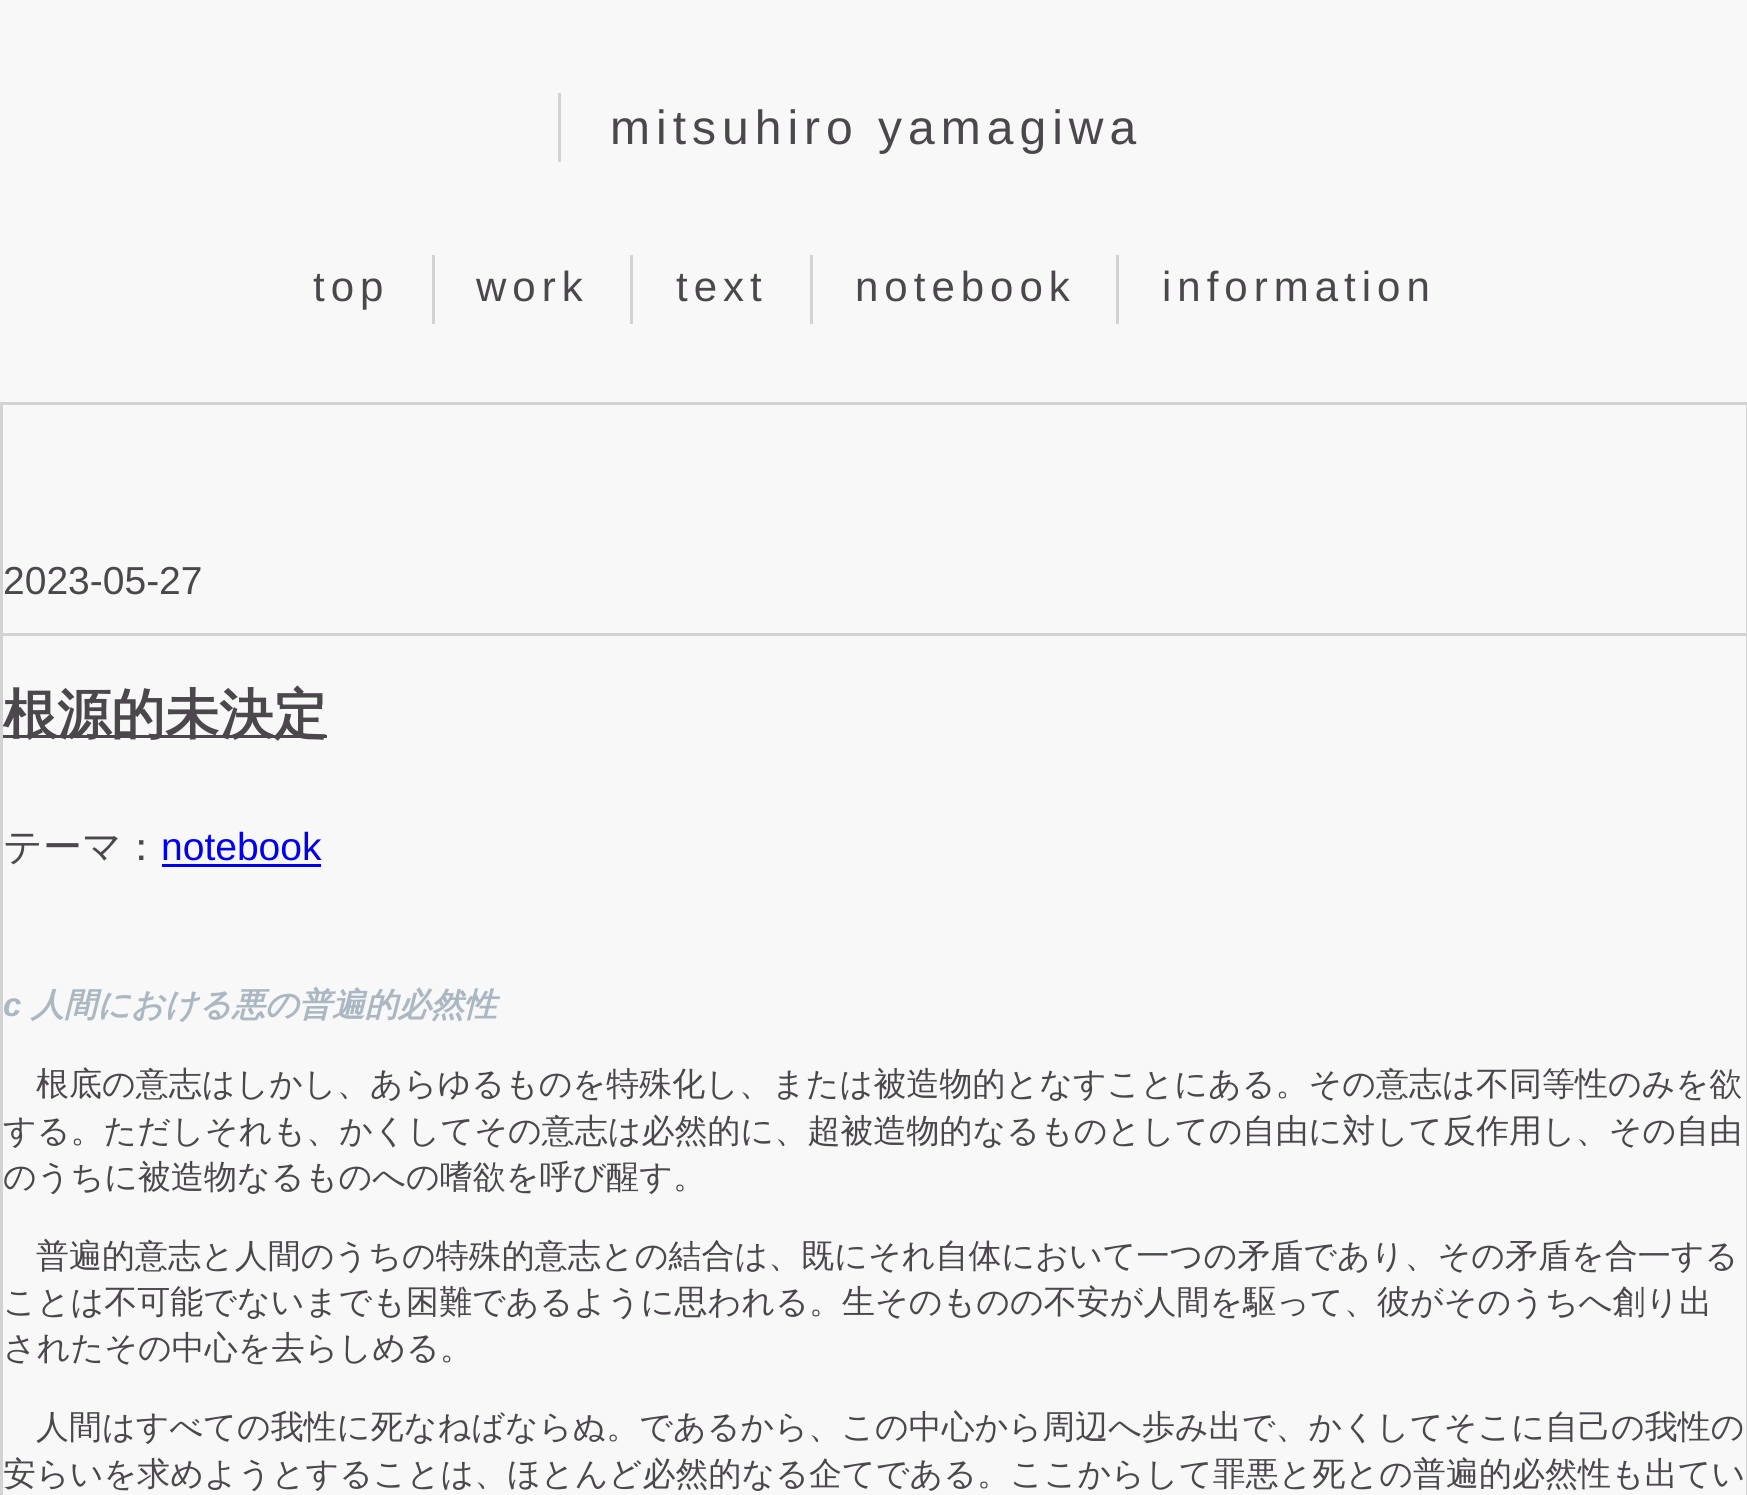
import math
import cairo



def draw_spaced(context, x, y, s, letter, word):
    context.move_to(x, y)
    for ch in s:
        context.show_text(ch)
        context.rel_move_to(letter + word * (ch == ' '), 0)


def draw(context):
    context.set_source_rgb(248 / 255, 248 / 255, 248 / 255)
    context.paint()
    context.set_source_rgb(211 / 255, 211 / 255, 211 / 255)
    context.rectangle(558, 93, 3, 69)
    context.fill()
    context.rectangle(432, 255, 3, 69)
    context.fill()
    context.rectangle(630, 255, 3, 69)
    context.fill()
    context.rectangle(810, 255, 3, 69)
    context.fill()
    context.rectangle(1116, 255, 3, 69)
    context.fill()
    context.rectangle(1.5, 403.5, 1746, 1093)
    context.set_line_width(3)
    context.stroke()
    context.rectangle(3, 633, 1743, 3)
    context.fill()
    context.set_source_rgb(75 / 255, 71 / 255, 77 / 255)
    context.rectangle(3, 735, 324, 3)
    context.fill()
    context.set_source_rgb(0, 0, 238 / 255)
    context.rectangle(162, 864, 159, 3)
    context.fill()
    context.select_font_face("Liberation Sans")
    context.set_font_size(48)
    context.set_source_rgb(75 / 255, 71 / 255, 77 / 255)
    draw_spaced(context, 610, 144, "mitsuhiro yamagiwa", 6, 0)
    context.set_font_size(42)
    draw_spaced(context, 313, 301, "top", 6, 0)
    draw_spaced(context, 476, 301, "work", 6, 0)
    draw_spaced(context, 676, 301, "text", 6, 0)
    draw_spaced(context, 855, 301, "notebook", 6, 0)
    draw_spaced(context, 1162, 301, "information", 6, 0)
    context.set_font_size(39)
    context.move_to(3, 594)
    context.show_text("2023-05-27")
    context.select_font_face("WenQuanYi Zen Hei", cairo.FontSlant.NORMAL, cairo.FontWeight.BOLD)
    context.set_font_size(54)
    context.move_to(3, 733)
    context.show_text("根源的未決定")
    context.select_font_face("WenQuanYi Zen Hei Medium")
    context.set_font_size(39)
    context.move_to(3, 860)
    context.show_text("テーマ：")
    context.select_font_face("Liberation Sans")
    context.set_source_rgb(0, 0, 238 / 255)
    context.move_to(161, 860)
    context.show_text("notebook")
    context.select_font_face("Liberation Sans", cairo.FontSlant.ITALIC, cairo.FontWeight.BOLD)
    context.set_font_size(33)
    context.set_source_rgb(171 / 255, 184 / 255, 195 / 255)
    context.move_to(3, 1016)
    context.show_text("c")
    context.select_font_face("WenQuanYi Zen Hei", cairo.FontSlant.ITALIC, cairo.FontWeight.BOLD)
    context.move_to(31, 1016)
    context.show_text("人間における悪の普遍的必然性")
    context.select_font_face("WenQuanYi Zen Hei Medium")
    context.set_source_rgb(75 / 255, 71 / 255, 77 / 255)
    context.move_to(36, 1095)
    context.show_text("根底の意志はしかし、あらゆるものを特殊化し、または被造物的となすことにある。その意志は不同等性のみを欲")
    context.move_to(3, 1142)
    context.show_text("する。ただしそれも、かくしてその意志は必然的に、超被造物的なるものとしての自由に対して反作用し、その自由")
    context.move_to(3, 1188)
    context.show_text("のうちに被造物なるものへの嗜欲を呼び醒す。")
    context.move_to(36, 1267)
    context.show_text("普遍的意志と人間のうちの特殊的意志との結合は、既にそれ自体において一つの矛盾であり、その矛盾を合一する")
    context.move_to(3, 1313)
    context.show_text("ことは不可能でないまでも困難であるように思われる。生そのものの不安が人間を駆って、彼がそのうちへ創り出")
    context.move_to(3, 1359)
    context.show_text("されたその中心を去らしめる。")
    context.move_to(36, 1438)
    context.show_text("人間はすべての我性に死なねばならぬ。であるから、この中心から周辺へ歩み出で、かくしてそこに自己の我性の")
    context.move_to(3, 1485)
    context.show_text("安らいを求めようとすることは、ほとんど必然的なる企てである。ここからして罪悪と死との普遍的必然性も出てい")


surface = cairo.ImageSurface(cairo.Format.RGB24, 1747, 1495)
context = cairo.Context(surface)
options = cairo.FontOptions()
options.set_hint_metrics(cairo.HintMetrics.OFF)
options.set_hint_style(cairo.HintStyle.NONE)
context.set_font_options(options)
context.set_miter_limit(4)
draw(context)
surface.write_to_png("out.png")
